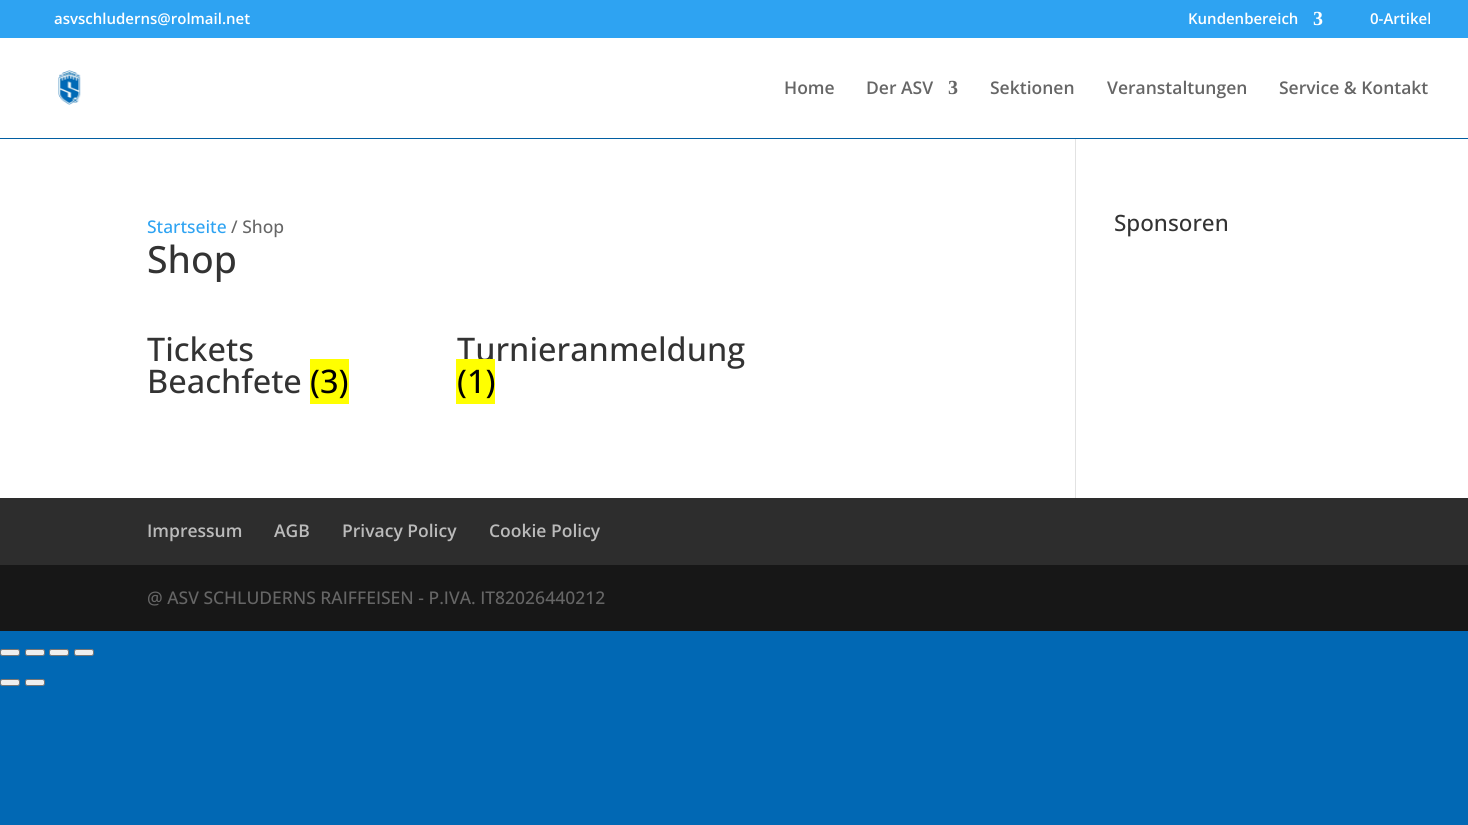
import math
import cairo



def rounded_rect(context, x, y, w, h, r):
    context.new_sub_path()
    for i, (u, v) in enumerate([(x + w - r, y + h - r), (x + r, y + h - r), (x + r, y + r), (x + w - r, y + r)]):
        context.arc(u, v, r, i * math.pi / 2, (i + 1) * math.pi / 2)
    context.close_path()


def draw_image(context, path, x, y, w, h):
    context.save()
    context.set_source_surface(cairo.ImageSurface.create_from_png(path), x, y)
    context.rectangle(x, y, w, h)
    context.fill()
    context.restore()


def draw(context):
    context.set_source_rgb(1 / 255, 104 / 255, 180 / 255)
    context.paint()
    context.set_source_rgb(46 / 255, 163 / 255, 242 / 255)
    context.rectangle(0, 0, 1468, 38)
    context.fill()
    context.set_source_rgb(1 / 255, 94 / 255, 162 / 255)
    context.new_path()
    context.move_to(0, 138)
    context.line_to(0, 139)
    context.line_to(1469, 139)
    context.line_to(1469, 39)
    context.line_to(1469, 138)
    context.close_path()
    context.fill()
    context.set_source_rgb(1, 1, 1)
    context.rectangle(0, 38, 1468, 100)
    context.fill()
    draw_image(context, "images/1.png", 58, 70, 23, 35)
    context.rectangle(0, 139, 1468, 359)
    context.fill()
    context.set_source_rgb(226 / 255, 226 / 255, 226 / 255)
    context.rectangle(1075, 139, 1, 359)
    context.fill()
    context.set_source_rgb(1, 1, 0)
    context.rectangle(310, 359, 39, 45)
    context.fill()
    context.set_source_rgb(45 / 255, 45 / 255, 45 / 255)
    context.rectangle(0, 498, 1468, 67)
    context.fill()
    context.set_source_rgb(23 / 255, 23 / 255, 23 / 255)
    context.rectangle(0, 565, 1468, 66)
    context.fill()
    context.set_source_rgb(239 / 255, 239 / 255, 239 / 255)
    rounded_rect(context, 0.5, 649.5, 19, 6, 2)
    context.fill_preserve()
    context.set_source_rgb(118 / 255, 118 / 255, 118 / 255)
    context.set_line_width(1)
    context.stroke()
    context.set_source_rgb(239 / 255, 239 / 255, 239 / 255)
    rounded_rect(context, 25.5, 649.5, 19, 6, 2)
    context.fill_preserve()
    context.set_source_rgb(118 / 255, 118 / 255, 118 / 255)
    context.stroke()
    context.set_source_rgb(239 / 255, 239 / 255, 239 / 255)
    rounded_rect(context, 49.5, 649.5, 19, 6, 2)
    context.fill_preserve()
    context.set_source_rgb(118 / 255, 118 / 255, 118 / 255)
    context.stroke()
    context.set_source_rgb(239 / 255, 239 / 255, 239 / 255)
    rounded_rect(context, 74.5, 649.5, 19, 6, 2)
    context.fill_preserve()
    context.set_source_rgb(118 / 255, 118 / 255, 118 / 255)
    context.stroke()
    context.set_source_rgb(239 / 255, 239 / 255, 239 / 255)
    rounded_rect(context, 0.5, 679.5, 19, 6, 2)
    context.fill_preserve()
    context.set_source_rgb(118 / 255, 118 / 255, 118 / 255)
    context.stroke()
    context.set_source_rgb(239 / 255, 239 / 255, 239 / 255)
    rounded_rect(context, 25.5, 679.5, 19, 6, 2)
    context.fill_preserve()
    context.set_source_rgb(118 / 255, 118 / 255, 118 / 255)
    context.stroke()
    context.select_font_face("Open Sans SemiBold")
    context.set_font_size(15)
    context.set_source_rgb(1, 1, 1)
    context.move_to(54, 24)
    context.show_text("asvschluderns@rolmail.net")
    context.move_to(1188, 24)
    context.show_text("Kundenbereich")
    context.select_font_face("Liberation Serif", cairo.FontSlant.NORMAL, cairo.FontWeight.BOLD)
    context.set_font_size(20)
    context.move_to(1313, 25)
    context.show_text("3")
    context.select_font_face("Open Sans SemiBold")
    context.set_font_size(15)
    context.move_to(1370, 24)
    context.show_text("0-Artikel")
    context.set_font_size(17.5)
    context.set_source_rgb(102 / 255, 102 / 255, 102 / 255)
    context.move_to(784, 94)
    context.show_text("Home")
    context.move_to(866, 94)
    context.show_text("Der ASV")
    context.select_font_face("Liberation Serif", cairo.FontSlant.NORMAL, cairo.FontWeight.BOLD)
    context.set_font_size(20)
    context.move_to(948, 94)
    context.show_text("3")
    context.select_font_face("Open Sans SemiBold")
    context.set_font_size(17.5)
    context.move_to(990, 94)
    context.show_text("Sektionen")
    context.move_to(1107, 94)
    context.show_text("Veranstaltungen")
    context.move_to(1279, 94)
    context.show_text("Service & Kontakt")
    context.select_font_face("Open Sans Medium")
    context.set_source_rgb(46 / 255, 163 / 255, 242 / 255)
    context.move_to(147, 233)
    context.show_text("Startseite")
    context.set_source_rgb(102 / 255, 102 / 255, 102 / 255)
    context.move_to(231, 233)
    context.show_text("/ Shop")
    context.set_font_size(37.5)
    context.set_source_rgb(51 / 255, 51 / 255, 51 / 255)
    context.move_to(147, 273)
    context.show_text("Shop")
    context.set_font_size(32.5)
    context.move_to(147, 361)
    context.show_text("Tickets")
    context.move_to(147, 393)
    context.show_text("Beachfete")
    context.set_source_rgb(0, 0, 0)
    context.move_to(310, 393)
    context.show_text("(3)")
    context.set_source_rgb(51 / 255, 51 / 255, 51 / 255)
    context.move_to(457, 361)
    context.show_text("Turnieranmeldung")
    context.set_source_rgb(1, 1, 0)
    context.rectangle(456, 359, 39, 45)
    context.fill()
    context.set_source_rgb(0, 0, 0)
    context.move_to(457, 393)
    context.show_text("(1)")
    context.set_font_size(22.5)
    context.set_source_rgb(51 / 255, 51 / 255, 51 / 255)
    context.move_to(1114, 231)
    context.show_text("Sponsoren")
    context.select_font_face("Open Sans SemiBold")
    context.set_font_size(17.5)
    context.set_source_rgb(187 / 255, 187 / 255, 187 / 255)
    context.move_to(147, 537)
    context.show_text("Impressum")
    context.move_to(274, 537)
    context.show_text("AGB")
    context.move_to(342, 537)
    context.show_text("Privacy Policy")
    context.move_to(489, 537)
    context.show_text("Cookie Policy")
    context.select_font_face("Open Sans Medium")
    context.set_source_rgb(102 / 255, 102 / 255, 102 / 255)
    context.move_to(147, 604)
    context.show_text("@ ASV SCHLUDERNS RAIFFEISEN - P.IVA. IT82026440212")


surface = cairo.ImageSurface(cairo.Format.RGB24, 1468, 825)
context = cairo.Context(surface)
options = cairo.FontOptions()
options.set_hint_metrics(cairo.HintMetrics.OFF)
options.set_hint_style(cairo.HintStyle.NONE)
context.set_font_options(options)
context.set_miter_limit(4)
draw(context)
surface.write_to_png("out.png")
